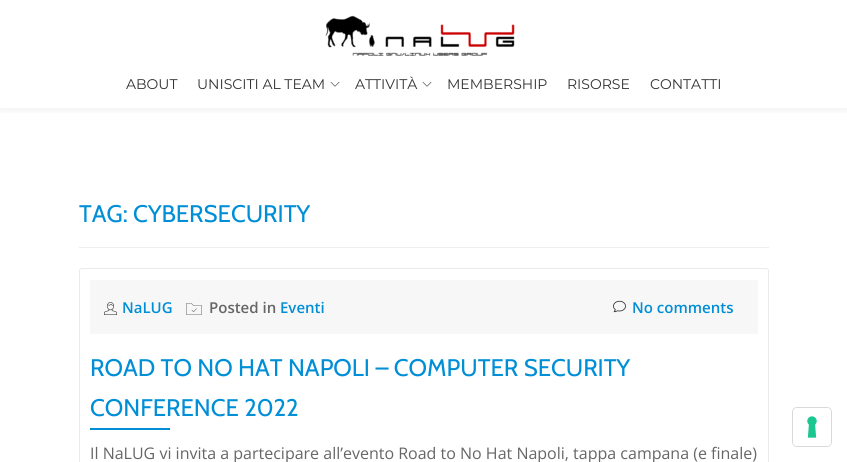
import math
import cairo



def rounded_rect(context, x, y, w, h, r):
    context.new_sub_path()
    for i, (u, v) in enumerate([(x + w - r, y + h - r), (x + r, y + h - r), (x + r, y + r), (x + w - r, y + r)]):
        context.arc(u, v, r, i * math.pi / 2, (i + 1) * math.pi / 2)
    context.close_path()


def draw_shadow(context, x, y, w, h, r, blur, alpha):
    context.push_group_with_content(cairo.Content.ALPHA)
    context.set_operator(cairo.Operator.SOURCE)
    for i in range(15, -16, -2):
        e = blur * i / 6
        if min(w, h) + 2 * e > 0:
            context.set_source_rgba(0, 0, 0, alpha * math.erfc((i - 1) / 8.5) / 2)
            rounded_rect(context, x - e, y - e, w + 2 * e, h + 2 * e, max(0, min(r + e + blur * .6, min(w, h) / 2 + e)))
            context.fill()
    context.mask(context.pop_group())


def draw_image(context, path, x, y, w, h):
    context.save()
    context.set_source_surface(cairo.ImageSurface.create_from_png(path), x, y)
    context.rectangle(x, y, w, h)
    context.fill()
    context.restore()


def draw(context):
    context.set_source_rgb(1, 1, 1)
    context.paint()
    context.save()
    context.rectangle(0, 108, 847, 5)
    context.clip()
    context.set_source_rgb(50 / 255, 50 / 255, 50 / 255)
    draw_shadow(context, 0, 2, 847, 108, 0, 4, 0.08)
    context.restore()
    draw_image(context, "images/1.png", 325, 15, 190, 41)
    draw_image(context, "images/2.png", 330, 81, 10, 6)
    draw_image(context, "images/2.png", 422, 81, 10, 6)
    context.set_source_rgb(238 / 255, 238 / 255, 238 / 255)
    context.rectangle(79, 247, 690, 1)
    context.fill()
    rounded_rect(context, 79.5, 268.5, 689, 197, 2.5)
    context.set_source_rgb(234 / 255, 234 / 255, 234 / 255)
    context.set_line_width(1)
    context.stroke()
    context.set_source_rgb(247 / 255, 247 / 255, 247 / 255)
    context.rectangle(90, 280, 668, 54)
    context.fill()
    draw_image(context, "images/3.png", 104, 302, 13, 13)
    draw_image(context, "images/4.png", 186, 303, 16, 12)
    draw_image(context, "images/5.png", 613, 300, 13, 13)
    context.set_source_rgb(0, 142 / 255, 214 / 255)
    context.rectangle(90, 428, 80, 2)
    context.fill()
    rounded_rect(context, 792.5, 407.5, 39, 39, 4.5)
    context.set_source_rgb(217 / 255, 217 / 255, 217 / 255)
    context.stroke()
    context.set_source_rgb(1, 1, 1)
    rounded_rect(context, 793, 408, 38, 38, 4)
    context.fill()
    draw_image(context, "images/6.png", 807, 416, 10, 22)
    context.select_font_face("Montserrat")
    context.set_font_size(14)
    context.set_source_rgb(49 / 255, 49 / 255, 49 / 255)
    context.move_to(126, 89)
    context.show_text("ABOUT")
    context.move_to(197, 89)
    context.show_text("UNISCITI AL TEAM")
    context.move_to(355, 89)
    context.show_text("ATTIVITÀ")
    context.move_to(447, 89)
    context.show_text("MEMBERSHIP")
    context.move_to(567, 89)
    context.show_text("RISORSE")
    context.move_to(650, 89)
    context.show_text("CONTATTI")
    context.select_font_face("Cabin")
    context.set_font_size(24)
    context.set_source_rgb(0, 142 / 255, 214 / 255)
    context.move_to(79, 222)
    context.show_text("TAG: CYBERSECURITY")
    context.select_font_face("Open Sans SemiBold")
    context.set_font_size(15)
    context.move_to(122, 313)
    context.show_text("NaLUG")
    context.set_source_rgb(102 / 255, 102 / 255, 102 / 255)
    context.move_to(209, 313)
    context.show_text("Posted in")
    context.set_source_rgb(0, 142 / 255, 214 / 255)
    context.move_to(280, 313)
    context.show_text("Eventi")
    context.move_to(632, 313)
    context.show_text("No comments")
    context.select_font_face("Cabin")
    context.set_font_size(24)
    context.move_to(90, 376)
    context.show_text("ROAD TO NO HAT NAPOLI – COMPUTER SECURITY")
    context.move_to(90, 416)
    context.show_text("CONFERENCE 2022")
    context.select_font_face("Open Sans")
    context.set_font_size(16)
    context.set_source_rgb(102 / 255, 102 / 255, 102 / 255)
    context.move_to(90, 459)
    context.show_text("Il NaLUG vi invita a partecipare all’evento Road to No Hat Napoli, tappa campana (e finale)")


surface = cairo.ImageSurface(cairo.Format.RGB24, 847, 462)
context = cairo.Context(surface)
options = cairo.FontOptions()
options.set_hint_metrics(cairo.HintMetrics.OFF)
options.set_hint_style(cairo.HintStyle.NONE)
context.set_font_options(options)
context.set_miter_limit(4)
draw(context)
surface.write_to_png("out.png")
